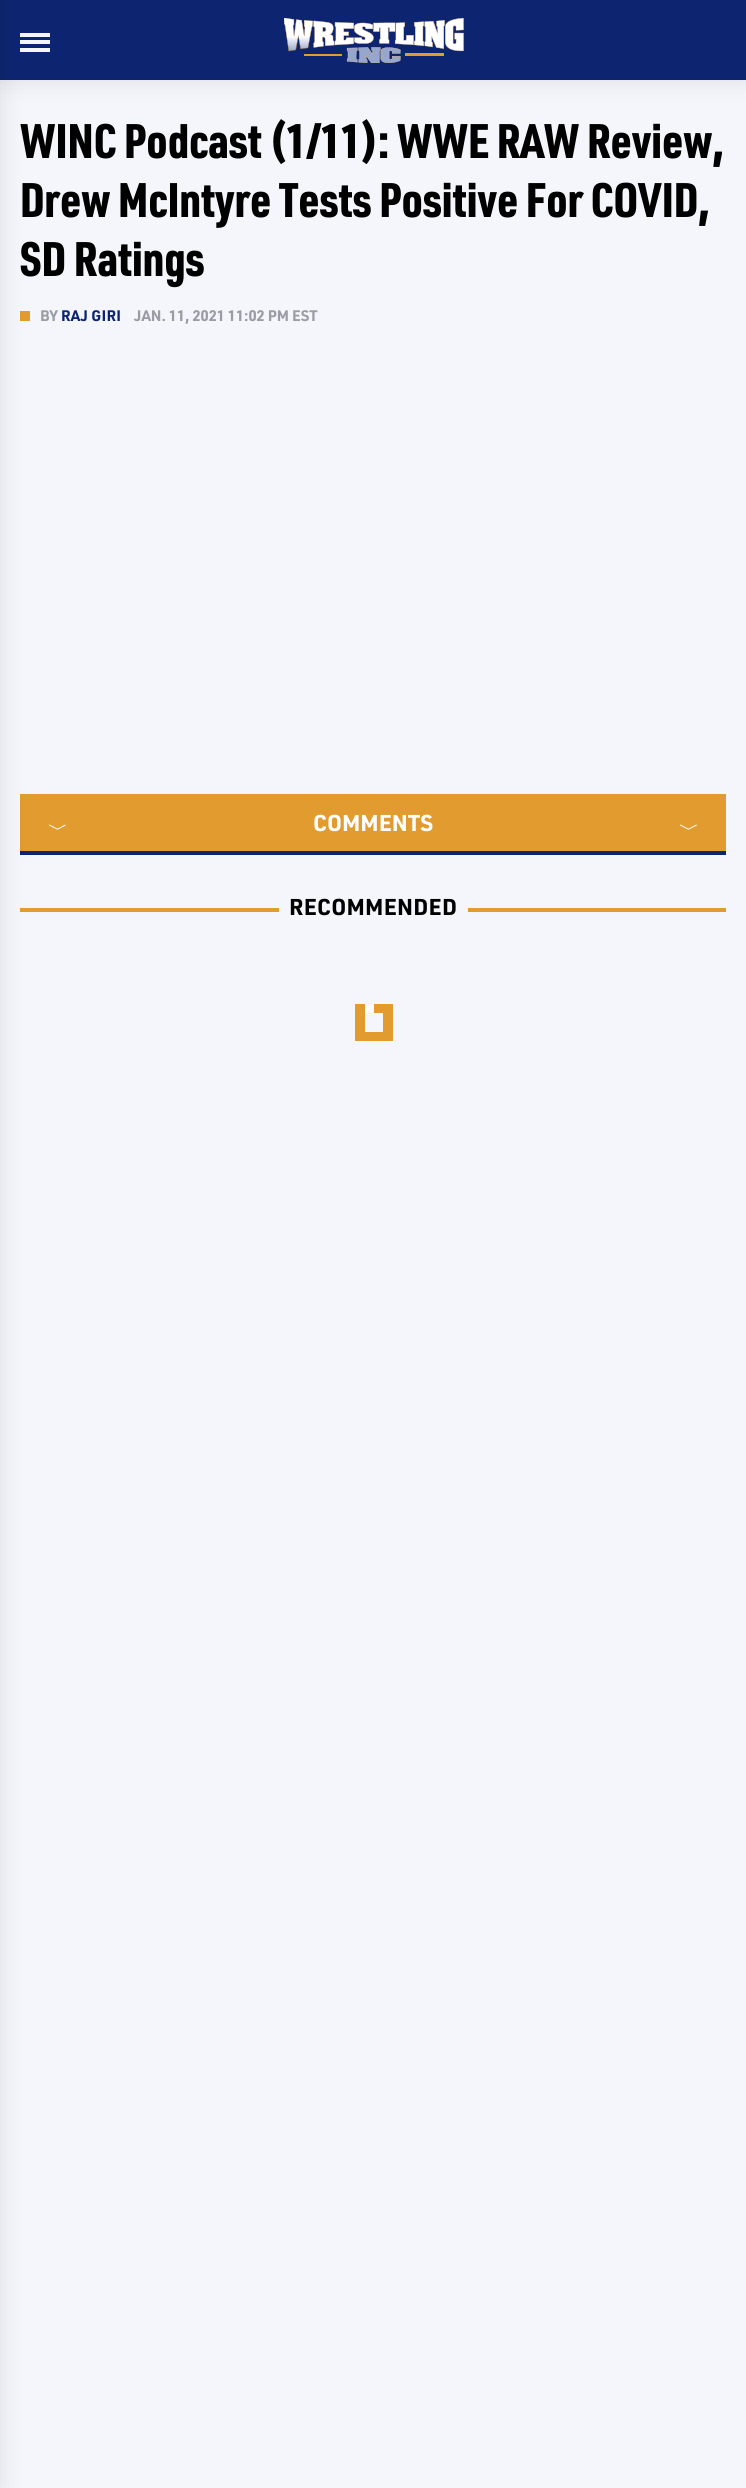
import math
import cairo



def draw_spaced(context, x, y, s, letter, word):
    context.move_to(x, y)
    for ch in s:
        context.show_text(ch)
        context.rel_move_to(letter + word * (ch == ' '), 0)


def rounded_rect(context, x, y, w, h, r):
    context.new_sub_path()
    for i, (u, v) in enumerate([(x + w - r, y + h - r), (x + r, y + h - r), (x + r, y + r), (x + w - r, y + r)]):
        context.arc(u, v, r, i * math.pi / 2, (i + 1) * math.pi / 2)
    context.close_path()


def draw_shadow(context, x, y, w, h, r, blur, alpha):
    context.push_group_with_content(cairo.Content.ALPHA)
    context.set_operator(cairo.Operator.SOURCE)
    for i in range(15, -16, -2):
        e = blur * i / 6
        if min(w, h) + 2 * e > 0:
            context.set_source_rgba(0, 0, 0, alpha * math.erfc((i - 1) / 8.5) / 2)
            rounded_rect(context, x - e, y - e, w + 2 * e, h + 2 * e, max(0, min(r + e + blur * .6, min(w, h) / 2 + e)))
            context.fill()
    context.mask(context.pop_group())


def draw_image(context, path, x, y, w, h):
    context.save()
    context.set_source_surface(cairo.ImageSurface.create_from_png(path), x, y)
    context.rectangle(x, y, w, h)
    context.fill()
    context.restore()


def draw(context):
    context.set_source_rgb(244 / 255, 246 / 255, 251 / 255)
    context.paint()
    context.set_source_rgb(0, 0, 0)
    draw_shadow(context, 0, 0, 746, 80, 0, 12.5, 0.1)
    context.set_source_rgb(13 / 255, 37 / 255, 113 / 255)
    context.rectangle(0, 0, 746, 80)
    context.fill()
    context.set_source_rgb(244 / 255, 246 / 255, 251 / 255)
    context.rectangle(20, 33, 30, 4)
    context.fill()
    context.rectangle(20, 40, 30, 4)
    context.fill()
    context.rectangle(20, 48, 30, 4)
    context.fill()
    context.set_source_rgb(226 / 255, 155 / 255, 46 / 255)
    context.rectangle(20, 311, 10, 10)
    context.fill()
    context.rectangle(20, 794, 706, 57)
    context.fill()
    context.set_source_rgb(13 / 255, 37 / 255, 113 / 255)
    context.rectangle(20, 851, 706, 4)
    context.fill()
    context.set_source_rgb(226 / 255, 155 / 255, 46 / 255)
    context.rectangle(20, 908, 259, 4)
    context.fill()
    context.set_source_rgb(0, 0, 0)
    draw_shadow(context, -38, 0, 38, 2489, 0, 12.5, 0.1)
    draw_image(context, "images/1.png", 284, 18, 180, 45)
    context.set_source_rgb(226 / 255, 155 / 255, 46 / 255)
    context.rectangle(468, 908, 258, 4)
    context.fill()
    draw_image(context, "images/2.png", 355, 1004, 38, 37)
    context.select_font_face("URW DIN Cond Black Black")
    context.set_font_size(47.5)
    context.set_source_rgb(0, 0, 0)
    context.move_to(20, 158)
    context.show_text("WINC Podcast (1/11): WWE RAW Review,")
    context.move_to(20, 217)
    context.show_text("Drew McIntyre Tests Positive For COVID,")
    context.move_to(20, 276)
    context.show_text("SD Ratings")
    context.select_font_face("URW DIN", cairo.FontSlant.NORMAL, cairo.FontWeight.BOLD)
    context.set_font_size(15)
    context.set_source_rgb(155 / 255, 157 / 255, 165 / 255)
    context.move_to(40, 321)
    context.show_text("BY")
    context.set_source_rgb(13 / 255, 37 / 255, 113 / 255)
    draw_spaced(context, 61, 321, "RAJ GIRI", 0.25, 0)
    context.set_source_rgb(155 / 255, 157 / 255, 165 / 255)
    context.move_to(134, 321)
    context.show_text("JAN. 11, 2021 11:02 PM EST")
    context.set_font_size(22.5)
    context.set_source_rgb(1, 1, 1)
    context.move_to(313, 831)
    context.show_text("COMMENTS")
    context.select_font_face("WenQuanYi Zen Hei Medium")
    context.set_font_size(20)
    context.move_to(48, 836)
    context.show_text("﹀")
    context.move_to(679, 836)
    context.show_text("﹀")
    context.select_font_face("URW DIN", cairo.FontSlant.NORMAL, cairo.FontWeight.BOLD)
    context.set_font_size(22.5)
    context.set_source_rgb(0, 0, 0)
    draw_spaced(context, 289, 915, "RECOMMENDED", 0.25, 0)


surface = cairo.ImageSurface(cairo.Format.RGB24, 746, 2488)
context = cairo.Context(surface)
options = cairo.FontOptions()
options.set_hint_metrics(cairo.HintMetrics.OFF)
options.set_hint_style(cairo.HintStyle.NONE)
context.set_font_options(options)
context.set_miter_limit(4)
draw(context)
surface.write_to_png("out.png")
